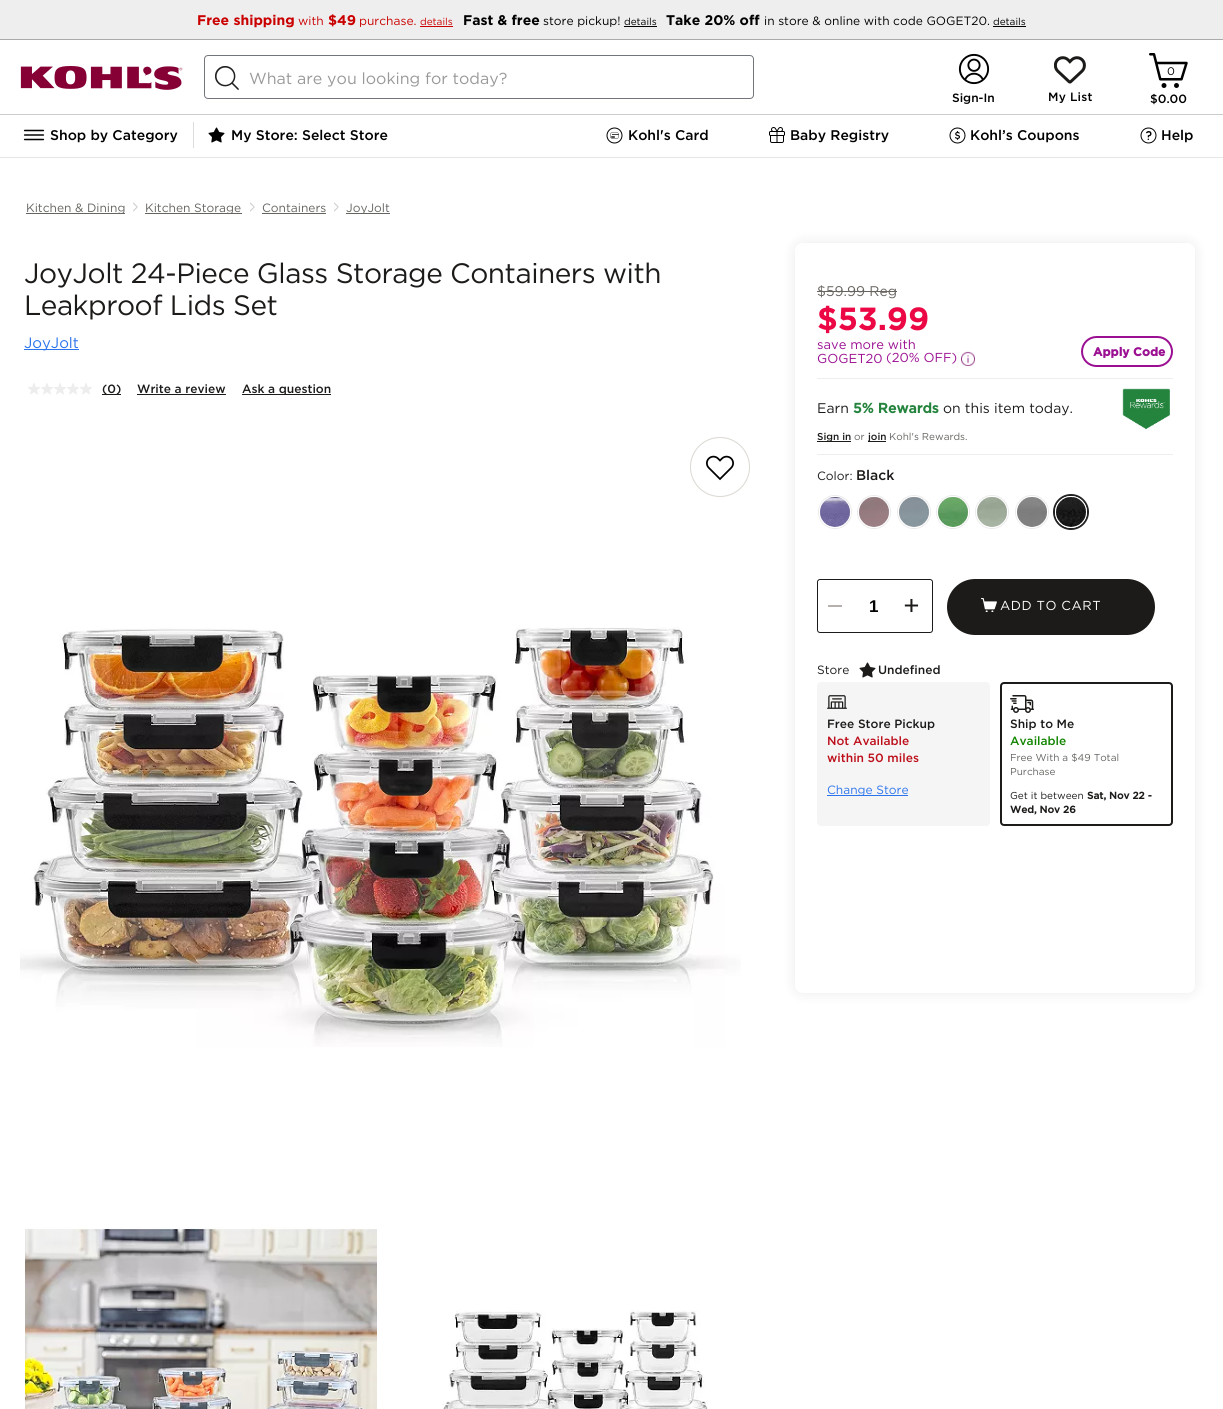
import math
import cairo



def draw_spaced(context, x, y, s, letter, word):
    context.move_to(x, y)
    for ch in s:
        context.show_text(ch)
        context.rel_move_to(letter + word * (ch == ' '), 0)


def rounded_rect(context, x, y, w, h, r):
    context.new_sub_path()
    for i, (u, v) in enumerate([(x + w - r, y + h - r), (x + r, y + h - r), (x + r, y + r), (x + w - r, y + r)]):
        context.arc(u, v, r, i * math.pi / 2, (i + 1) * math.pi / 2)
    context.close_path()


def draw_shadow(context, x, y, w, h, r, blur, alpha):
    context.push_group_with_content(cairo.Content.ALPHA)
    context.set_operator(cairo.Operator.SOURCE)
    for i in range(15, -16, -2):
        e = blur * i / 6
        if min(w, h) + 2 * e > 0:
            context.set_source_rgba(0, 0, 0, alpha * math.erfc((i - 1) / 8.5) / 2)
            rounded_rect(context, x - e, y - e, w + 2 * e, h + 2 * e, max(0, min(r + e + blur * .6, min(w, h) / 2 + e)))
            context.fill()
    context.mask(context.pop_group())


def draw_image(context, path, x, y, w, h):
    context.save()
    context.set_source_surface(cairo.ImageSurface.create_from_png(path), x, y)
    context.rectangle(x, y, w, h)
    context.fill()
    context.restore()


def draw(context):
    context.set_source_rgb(1, 1, 1)
    context.paint()
    context.set_source_rgb(230 / 255, 230 / 255, 230 / 255)
    context.rectangle(0, 157, 1223, 1)
    context.fill()
    context.set_source_rgb(238 / 255, 238 / 255, 238 / 255)
    context.rectangle(0, 0, 1223, 39)
    context.fill()
    context.set_source_rgb(170 / 255, 170 / 255, 170 / 255)
    context.rectangle(0, 39, 1223, 1)
    context.fill()
    context.set_source_rgb(202 / 255, 0, 0)
    context.rectangle(420, 26, 33, 1)
    context.fill()
    context.set_source_rgb(0, 0, 0)
    context.rectangle(624, 26, 33, 1)
    context.fill()
    context.rectangle(993, 26, 33, 1)
    context.fill()
    context.set_source_rgb(204 / 255, 204 / 255, 204 / 255)
    context.rectangle(0, 114, 1223, 1)
    context.fill()
    draw_image(context, "images/1.png", 20, 66, 163, 24)
    rounded_rect(context, 204.5, 55.5, 549, 43, 3.5)
    context.set_source_rgb(115 / 255, 117 / 255, 125 / 255)
    context.set_line_width(1)
    context.stroke()
    draw_image(context, "images/2.png", 215, 66, 24, 24)
    draw_image(context, "images/3.png", 1149, 53, 39, 35)
    draw_image(context, "images/4.png", 958, 53, 32, 32)
    draw_image(context, "images/5.png", 1054, 56, 32, 28)
    draw_image(context, "images/6.png", 23, 129, 22, 12)
    context.set_source_rgb(220 / 255, 220 / 255, 220 / 255)
    context.rectangle(193, 122, 1, 26)
    context.fill()
    draw_image(context, "images/7.png", 208, 127, 17, 16)
    draw_image(context, "images/8.png", 606, 127, 17, 17)
    draw_image(context, "images/9.png", 769, 127, 16, 16)
    draw_image(context, "images/10.png", 949, 127, 17, 17)
    draw_image(context, "images/11.png", 1140, 127, 17, 17)
    context.set_source_rgb(103 / 255, 100 / 255, 96 / 255)
    context.rectangle(26, 213, 99, 1)
    context.fill()
    draw_image(context, "images/12.png", 133, 202, 5, 10)
    context.rectangle(145, 213, 97, 1)
    context.fill()
    draw_image(context, "images/12.png", 250, 202, 5, 10)
    context.rectangle(262, 213, 64, 1)
    context.fill()
    draw_image(context, "images/12.png", 334, 202, 5, 10)
    context.rectangle(346, 213, 44, 1)
    context.fill()
    context.set_source_rgb(44 / 255, 116 / 255, 236 / 255)
    context.rectangle(24, 349, 55, 1)
    context.fill()
    draw_image(context, "images/13.png", 28, 383, 12, 12)
    draw_image(context, "images/13.png", 41, 383, 12, 12)
    draw_image(context, "images/13.png", 54, 383, 12, 12)
    draw_image(context, "images/13.png", 67, 383, 12, 12)
    draw_image(context, "images/13.png", 80, 383, 12, 12)
    context.set_source_rgb(29 / 255, 27 / 255, 25 / 255)
    context.rectangle(102, 394, 19, 1)
    context.fill()
    context.rectangle(137, 394, 89, 1)
    context.fill()
    context.rectangle(242, 394, 89, 1)
    context.fill()
    context.arc(720, 467, 29.5, 0, 2 * math.pi)
    context.set_source_rgb(219 / 255, 215 / 255, 210 / 255)
    context.stroke()
    draw_image(context, "images/14.png", 706, 455, 28, 26)
    draw_image(context, "images/15.png", 20, 627, 721, 420)
    draw_image(context, "images/16.png", 25, 1227, 352, 182)
    draw_image(context, "images/17.png", 442, 1310, 266, 99)
    context.set_source_rgb(0, 0, 0)
    draw_shadow(context, 795, 243, 400, 750, 8, 7.5, 0.08)
    context.set_source_rgb(1, 1, 1)
    rounded_rect(context, 795, 243, 400, 750, 8)
    context.fill()
    context.set_source_rgb(103 / 255, 100 / 255, 96 / 255)
    context.rectangle(817, 291, 80, 1)
    context.fill()
    draw_image(context, "images/18.png", 961, 351, 14, 15)
    rounded_rect(context, 1082, 337, 90, 29, 14.5)
    context.set_source_rgb(155 / 255, 16 / 255, 146 / 255)
    context.set_line_width(2)
    context.stroke()
    context.set_source_rgb(238 / 255, 238 / 255, 238 / 255)
    context.rectangle(817, 454, 356, 1)
    context.fill()
    context.rectangle(817, 378, 356, 1)
    context.fill()
    draw_image(context, "images/19.png", 1122, 388, 48, 41)
    context.set_source_rgb(29 / 255, 27 / 255, 25 / 255)
    context.rectangle(817, 441, 34, 1)
    context.fill()
    context.rectangle(868, 441, 18, 1)
    context.fill()
    context.arc(835, 512, 16.5, 0, 2 * math.pi)
    context.set_source_rgb(235 / 255, 235 / 255, 235 / 255)
    context.set_line_width(1)
    context.stroke()
    context.save()
    rounded_rect(context, 819, 496, 32, 32, 16)
    context.clip()
    gradient = cairo.LinearGradient(820, 527, 850, 497)
    gradient.add_color_stop_rgba(0, 1, 1, 1, 1)
    gradient.add_color_stop_rgba(1, 204 / 255, 204 / 255, 204 / 255, 1)
    context.set_source(gradient)
    context.rectangle(820, 497, 30, 30)
    context.fill()
    context.restore()
    context.arc(835, 512, 15.5, 0, 2 * math.pi)
    context.set_source_rgb(1, 1, 1)
    context.stroke()
    draw_image(context, "images/20.png", 820, 497, 30, 30)
    context.arc(874, 512, 16.5, 0, 2 * math.pi)
    context.set_source_rgb(235 / 255, 235 / 255, 235 / 255)
    context.stroke()
    context.save()
    rounded_rect(context, 858, 496, 32, 32, 16)
    context.clip()
    gradient = cairo.LinearGradient(859, 527, 889, 497)
    gradient.add_color_stop_rgba(0, 1, 1, 1, 1)
    gradient.add_color_stop_rgba(1, 204 / 255, 204 / 255, 204 / 255, 1)
    context.set_source(gradient)
    context.rectangle(859, 497, 30, 30)
    context.fill()
    context.restore()
    context.arc(874, 512, 15.5, 0, 2 * math.pi)
    context.set_source_rgb(1, 1, 1)
    context.stroke()
    draw_image(context, "images/21.png", 859, 497, 30, 30)
    context.arc(914, 512, 16.5, 0, 2 * math.pi)
    context.set_source_rgb(235 / 255, 235 / 255, 235 / 255)
    context.stroke()
    context.save()
    rounded_rect(context, 898, 496, 32, 32, 16)
    context.clip()
    gradient = cairo.LinearGradient(899, 527, 929, 497)
    gradient.add_color_stop_rgba(0, 1, 1, 1, 1)
    gradient.add_color_stop_rgba(1, 204 / 255, 204 / 255, 204 / 255, 1)
    context.set_source(gradient)
    context.rectangle(899, 497, 30, 30)
    context.fill()
    context.restore()
    context.arc(914, 512, 15.5, 0, 2 * math.pi)
    context.set_source_rgb(1, 1, 1)
    context.stroke()
    draw_image(context, "images/22.png", 899, 497, 30, 30)
    context.arc(953, 512, 16.5, 0, 2 * math.pi)
    context.set_source_rgb(235 / 255, 235 / 255, 235 / 255)
    context.stroke()
    context.save()
    rounded_rect(context, 937, 496, 32, 32, 16)
    context.clip()
    gradient = cairo.LinearGradient(938, 527, 968, 497)
    gradient.add_color_stop_rgba(0, 1, 1, 1, 1)
    gradient.add_color_stop_rgba(1, 204 / 255, 204 / 255, 204 / 255, 1)
    context.set_source(gradient)
    context.rectangle(938, 497, 30, 30)
    context.fill()
    context.restore()
    context.arc(953, 512, 15.5, 0, 2 * math.pi)
    context.set_source_rgb(1, 1, 1)
    context.stroke()
    draw_image(context, "images/23.png", 938, 497, 30, 30)
    context.arc(992, 512, 16.5, 0, 2 * math.pi)
    context.set_source_rgb(235 / 255, 235 / 255, 235 / 255)
    context.stroke()
    context.save()
    rounded_rect(context, 976, 496, 32, 32, 16)
    context.clip()
    gradient = cairo.LinearGradient(977, 527, 1007, 497)
    gradient.add_color_stop_rgba(0, 1, 1, 1, 1)
    gradient.add_color_stop_rgba(1, 204 / 255, 204 / 255, 204 / 255, 1)
    context.set_source(gradient)
    context.rectangle(977, 497, 30, 30)
    context.fill()
    context.restore()
    context.arc(992, 512, 15.5, 0, 2 * math.pi)
    context.set_source_rgb(1, 1, 1)
    context.stroke()
    draw_image(context, "images/24.png", 977, 497, 30, 30)
    context.arc(1032, 512, 16.5, 0, 2 * math.pi)
    context.set_source_rgb(235 / 255, 235 / 255, 235 / 255)
    context.stroke()
    context.save()
    rounded_rect(context, 1016, 496, 32, 32, 16)
    context.clip()
    gradient = cairo.LinearGradient(1017, 527, 1047, 497)
    gradient.add_color_stop_rgba(0, 1, 1, 1, 1)
    gradient.add_color_stop_rgba(1, 204 / 255, 204 / 255, 204 / 255, 1)
    context.set_source(gradient)
    context.rectangle(1017, 497, 30, 30)
    context.fill()
    context.restore()
    context.arc(1032, 512, 15.5, 0, 2 * math.pi)
    context.set_source_rgb(1, 1, 1)
    context.stroke()
    draw_image(context, "images/25.png", 1017, 497, 30, 30)
    context.arc(1071, 512, 17, 0, 2 * math.pi)
    context.set_source_rgb(34 / 255, 34 / 255, 34 / 255)
    context.set_line_width(2)
    context.stroke()
    context.save()
    rounded_rect(context, 1055, 496, 32, 32, 16)
    context.clip()
    gradient = cairo.LinearGradient(1056, 527, 1086, 497)
    gradient.add_color_stop_rgba(0, 1, 1, 1, 1)
    gradient.add_color_stop_rgba(1, 204 / 255, 204 / 255, 204 / 255, 1)
    context.set_source(gradient)
    context.rectangle(1056, 497, 30, 30)
    context.fill()
    context.restore()
    context.arc(1071, 512, 15.5, 0, 2 * math.pi)
    context.set_source_rgb(1, 1, 1)
    context.set_line_width(1)
    context.stroke()
    draw_image(context, "images/26.png", 1056, 497, 30, 30)
    rounded_rect(context, 817.5, 579.5, 115, 53, 2.5)
    context.set_source_rgb(29 / 255, 27 / 255, 25 / 255)
    context.stroke()
    context.set_source_rgb(182 / 255, 177 / 255, 172 / 255)
    context.rectangle(828, 605, 14, 2)
    context.fill()
    context.set_source_rgb(29 / 255, 27 / 255, 25 / 255)
    rounded_rect(context, 947, 579, 208, 56, 28)
    context.fill()
    draw_image(context, "images/27.png", 981, 598, 16, 14)
    draw_image(context, "images/28.png", 859, 662, 17, 16)
    context.set_source_rgb(245 / 255, 245 / 255, 245 / 255)
    rounded_rect(context, 817, 682, 173, 144, 4)
    context.fill()
    draw_image(context, "images/29.png", 827, 695, 20, 14)
    context.set_source_rgb(44 / 255, 116 / 255, 236 / 255)
    context.rectangle(827, 795, 81, 1)
    context.fill()
    rounded_rect(context, 1001, 683, 171, 142, 3)
    context.set_source_rgb(29 / 255, 27 / 255, 25 / 255)
    context.set_line_width(2)
    context.stroke()
    draw_image(context, "images/30.png", 1010, 695, 24, 18)
    context.select_font_face("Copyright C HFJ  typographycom")
    context.set_font_size(14)
    context.set_source_rgb(202 / 255, 0, 0)
    context.move_to(197, 25)
    context.show_text("Free shipping")
    context.select_font_face("Copyright C HFJ  typographycom Light")
    context.set_font_size(12)
    context.move_to(298, 25)
    context.show_text("with")
    context.select_font_face("Copyright C HFJ  typographycom")
    context.set_font_size(14)
    context.move_to(328, 25)
    context.show_text("$49")
    context.select_font_face("Copyright C HFJ  typographycom Light")
    context.set_font_size(12)
    context.move_to(359, 25)
    context.show_text("purchase.")
    context.set_font_size(10)
    context.move_to(420, 25)
    context.show_text("details")
    context.select_font_face("Copyright C HFJ  typographycom")
    context.set_font_size(14)
    context.set_source_rgb(0, 0, 0)
    context.move_to(463, 25)
    context.show_text("Fast & free")
    context.select_font_face("Copyright C HFJ  typographycom Light")
    context.set_font_size(12)
    context.move_to(543, 25)
    context.show_text("store pickup!")
    context.set_font_size(10)
    context.move_to(624, 25)
    context.show_text("details")
    context.select_font_face("Copyright C HFJ  typographycom")
    context.set_font_size(14)
    context.move_to(666, 25)
    context.show_text("Take 20% off")
    context.select_font_face("Copyright C HFJ  typographycom Light")
    context.set_font_size(12)
    context.move_to(764, 25)
    context.show_text("in store & online with code GOGET20.")
    context.set_font_size(10)
    context.move_to(993, 25)
    context.show_text("details")
    context.set_font_size(16)
    context.set_source_rgb(153 / 255, 153 / 255, 153 / 255)
    context.move_to(249, 84)
    context.show_text("What are you looking for today?")
    context.set_font_size(11)
    context.set_source_rgb(0, 0, 0)
    context.move_to(1167, 75)
    context.show_text("0")
    context.select_font_face("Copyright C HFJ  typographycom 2 Light")
    context.set_font_size(12)
    context.move_to(1150, 103)
    context.show_text("$0.00")
    context.move_to(952, 102)
    context.show_text("Sign-In")
    draw_spaced(context, 1048, 101, "My List", 0.25, 0)
    context.set_font_size(14)
    context.move_to(50, 140)
    context.show_text("Shop by Category")
    context.move_to(231, 140)
    context.show_text("My Store: Select Store")
    context.move_to(628, 140)
    context.show_text("Kohl's Card")
    context.move_to(790, 140)
    context.show_text("Baby Registry")
    context.move_to(970, 140)
    context.show_text("Kohl’s Coupons")
    context.move_to(1161, 140)
    context.show_text("Help")
    context.select_font_face("Copyright C HFJ  typographycom Light")
    context.set_font_size(12)
    context.set_source_rgb(103 / 255, 100 / 255, 96 / 255)
    context.move_to(26, 212)
    context.show_text("Kitchen & Dining")
    context.move_to(145, 212)
    context.show_text("Kitchen Storage")
    context.move_to(262, 212)
    context.show_text("Containers")
    context.move_to(346, 212)
    context.show_text("JoyJolt")
    context.set_font_size(28)
    context.set_source_rgb(29 / 255, 27 / 255, 25 / 255)
    draw_spaced(context, 24, 283, "JoyJolt 24-Piece Glass Storage Containers with", -0.5, 0)
    draw_spaced(context, 24, 315, "Leakproof Lids Set", -0.5, 0)
    context.set_font_size(15)
    context.set_source_rgb(44 / 255, 116 / 255, 236 / 255)
    context.move_to(24, 348)
    context.show_text("JoyJolt")
    context.select_font_face("Copyright C HFJ  typographycom 2 Light")
    context.set_font_size(12)
    context.set_source_rgb(29 / 255, 27 / 255, 25 / 255)
    context.move_to(102, 393)
    context.show_text("(0)")
    context.move_to(137, 393)
    context.show_text("Write a review")
    context.move_to(242, 393)
    context.show_text("Ask a question")
    context.select_font_face("Copyright C HFJ  typographycom Light")
    context.set_font_size(14)
    context.set_source_rgb(103 / 255, 100 / 255, 96 / 255)
    context.move_to(817, 296)
    context.show_text("$59.99 Reg")
    context.select_font_face("Copyright C HFJ  typographycom")
    context.set_font_size(32)
    context.set_source_rgb(235 / 255, 8 / 255, 69 / 255)
    context.move_to(817, 330)
    context.show_text("$53.99")
    context.select_font_face("Copyright C HFJ  typographycom Light")
    context.set_font_size(13)
    context.set_source_rgb(155 / 255, 16 / 255, 146 / 255)
    context.move_to(817, 349)
    context.show_text("save more with")
    context.move_to(817, 363)
    context.show_text("GOGET20")
    context.move_to(886, 362)
    context.show_text("(20% OFF)")
    context.select_font_face("Copyright C HFJ  typographycom", cairo.FontSlant.NORMAL, cairo.FontWeight.BOLD)
    context.set_font_size(12)
    context.move_to(1093, 356)
    context.show_text("Apply Code")
    context.select_font_face("Copyright C HFJ  typographycom Light")
    context.set_font_size(14)
    context.set_source_rgb(29 / 255, 27 / 255, 25 / 255)
    context.move_to(817, 413)
    context.show_text("Earn")
    context.select_font_face("Copyright C HFJ  typographycom 2", cairo.FontSlant.NORMAL, cairo.FontWeight.BOLD)
    context.set_source_rgb(36 / 255, 131 / 255, 61 / 255)
    context.move_to(853, 413)
    context.show_text("5% Rewards")
    context.select_font_face("Copyright C HFJ  typographycom Light")
    context.set_source_rgb(29 / 255, 27 / 255, 25 / 255)
    context.move_to(943, 413)
    context.show_text("on this item today.")
    context.select_font_face("Copyright C HFJ  typographycom 2 Light")
    context.set_font_size(10)
    context.move_to(817, 440)
    context.show_text("Sign in")
    context.select_font_face("Copyright C HFJ  typographycom Light")
    context.set_source_rgb(103 / 255, 100 / 255, 96 / 255)
    context.move_to(854, 440)
    context.show_text("or")
    context.select_font_face("Copyright C HFJ  typographycom 2 Light")
    context.set_source_rgb(29 / 255, 27 / 255, 25 / 255)
    context.move_to(868, 440)
    context.show_text("join")
    context.select_font_face("Copyright C HFJ  typographycom Light")
    context.set_source_rgb(103 / 255, 100 / 255, 96 / 255)
    context.move_to(889, 440)
    context.show_text("Kohl's Rewards.")
    context.set_font_size(12)
    context.set_source_rgb(29 / 255, 27 / 255, 25 / 255)
    context.move_to(817, 480)
    context.show_text("Color:")
    context.select_font_face("Copyright C HFJ  typographycom 2 Light")
    context.set_font_size(14)
    context.move_to(856, 480)
    context.show_text("Black")
    context.select_font_face("Liberation Sans", cairo.FontSlant.NORMAL, cairo.FontWeight.BOLD)
    context.set_font_size(17)
    context.set_source_rgb(0, 0, 0)
    context.move_to(869, 612)
    context.show_text("1")
    context.select_font_face("Copyright C HFJ  typographycom Light")
    context.set_font_size(27)
    context.set_source_rgb(29 / 255, 27 / 255, 25 / 255)
    context.move_to(903, 615)
    context.show_text("+")
    context.set_font_size(13)
    context.set_source_rgb(1, 1, 1)
    draw_spaced(context, 1000, 610, "ADD TO CART", 0.5, 0)
    context.set_font_size(12)
    context.set_source_rgb(29 / 255, 27 / 255, 25 / 255)
    context.move_to(817, 674)
    context.show_text("Store")
    context.select_font_face("Copyright C HFJ  typographycom 2 Light")
    context.move_to(878, 674)
    context.show_text("Undefined")
    context.move_to(827, 728)
    context.show_text("Free Store Pickup")
    context.set_source_rgb(189 / 255, 15 / 255, 27 / 255)
    context.move_to(827, 745)
    context.show_text("Not Available")
    context.move_to(827, 762)
    context.show_text("within 50 miles")
    context.select_font_face("Copyright C HFJ  typographycom Light")
    context.set_source_rgb(44 / 255, 116 / 255, 236 / 255)
    context.move_to(827, 794)
    context.show_text("Change Store")
    context.select_font_face("Copyright C HFJ  typographycom 2 Light")
    context.set_source_rgb(29 / 255, 27 / 255, 25 / 255)
    context.move_to(1010, 728)
    context.show_text("Ship to Me")
    context.set_source_rgb(18 / 255, 133 / 255, 0)
    context.move_to(1010, 745)
    context.show_text("Available")
    context.select_font_face("Copyright C HFJ  typographycom Light")
    context.set_font_size(10)
    context.set_source_rgb(103 / 255, 100 / 255, 96 / 255)
    context.move_to(1010, 761)
    context.show_text("Free With a $49 Total")
    context.move_to(1010, 775)
    context.show_text("Purchase")
    context.set_source_rgb(29 / 255, 27 / 255, 25 / 255)
    context.move_to(1010, 799)
    context.show_text("Get it between")
    context.select_font_face("Copyright C HFJ  typographycom 2", cairo.FontSlant.NORMAL, cairo.FontWeight.BOLD)
    context.move_to(1087, 799)
    context.show_text("Sat, Nov 22 -")
    context.move_to(1010, 813)
    context.show_text("Wed, Nov 26")


surface = cairo.ImageSurface(cairo.Format.RGB24, 1223, 1409)
context = cairo.Context(surface)
options = cairo.FontOptions()
options.set_hint_metrics(cairo.HintMetrics.OFF)
options.set_hint_style(cairo.HintStyle.NONE)
context.set_font_options(options)
context.set_miter_limit(4)
draw(context)
surface.write_to_png("out.png")
